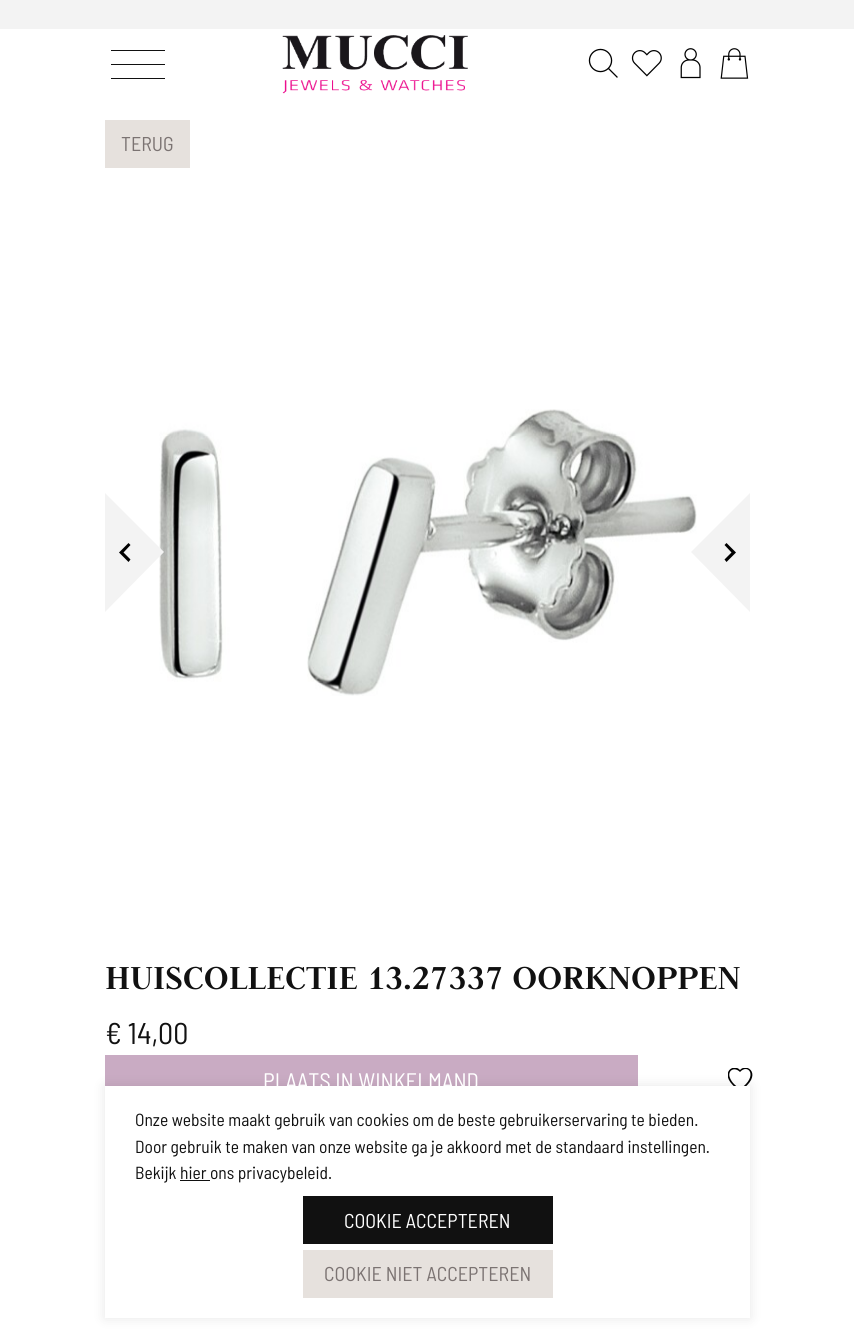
import math
import cairo



def rounded_rect(context, x, y, w, h, r):
    context.new_sub_path()
    for i, (u, v) in enumerate([(x + w - r, y + h - r), (x + r, y + h - r), (x + r, y + r), (x + w - r, y + r)]):
        context.arc(u, v, r, i * math.pi / 2, (i + 1) * math.pi / 2)
    context.close_path()


def draw_shadow(context, x, y, w, h, r, blur, alpha):
    context.push_group_with_content(cairo.Content.ALPHA)
    context.set_operator(cairo.Operator.SOURCE)
    for i in range(15, -16, -2):
        e = blur * i / 6
        if min(w, h) + 2 * e > 0:
            context.set_source_rgba(0, 0, 0, alpha * math.erfc((i - 1) / 8.5) / 2)
            rounded_rect(context, x - e, y - e, w + 2 * e, h + 2 * e, max(0, min(r + e + blur * .6, min(w, h) / 2 + e)))
            context.fill()
    context.mask(context.pop_group())


def draw_image(context, path, x, y, w, h):
    context.save()
    context.set_source_surface(cairo.ImageSurface.create_from_png(path), x, y)
    context.rectangle(x, y, w, h)
    context.fill()
    context.restore()


def draw(context):
    context.set_source_rgb(1, 1, 1)
    context.paint()
    context.set_source_rgb(243 / 255, 243 / 255, 243 / 255)
    context.rectangle(0, 0, 854, 29)
    context.fill()
    context.set_source_rgb(17 / 255, 17 / 255, 17 / 255)
    context.rectangle(111, 50, 54, 1)
    context.fill()
    context.rectangle(111, 64, 54, 1)
    context.fill()
    context.rectangle(111, 78, 54, 1)
    context.fill()
    draw_image(context, "images/1.png", 282, 35, 186, 59)
    draw_image(context, "images/2.png", 588, 48, 30, 30)
    draw_image(context, "images/3.png", 631, 50, 31, 27)
    draw_image(context, "images/4.png", 680, 48, 21, 31)
    draw_image(context, "images/5.png", 720, 48, 29, 31)
    context.set_source_rgb(230 / 255, 225 / 255, 221 / 255)
    context.rectangle(105, 120, 85, 48)
    context.fill()
    draw_image(context, "images/6.png", 159, 409, 538, 287)
    context.save()
    context.rectangle(105, 493, 60, 120)
    context.clip()
    context.set_source_rgb(243 / 255, 243 / 255, 243 / 255)
    context.new_path()
    context.move_to(105, 493)
    context.line_to(164, 552)
    context.line_to(105, 612)
    context.line_to(46, 552)
    context.close_path()
    context.fill()
    context.restore()
    context.set_source_rgb(0, 0, 0)
    context.new_path()
    context.move_to(128.5, 543)
    context.line_to(130.5, 545)
    context.line_to(123.5, 552.5)
    context.line_to(130.5, 559.5)
    context.line_to(128.5, 562)
    context.line_to(119, 552.5)
    context.close_path()
    context.fill()
    context.save()
    context.rectangle(690, 493, 60, 120)
    context.clip()
    context.set_source_rgb(243 / 255, 243 / 255, 243 / 255)
    context.new_path()
    context.move_to(750, 493)
    context.line_to(809, 552)
    context.line_to(750, 612)
    context.line_to(691, 552)
    context.close_path()
    context.fill()
    context.restore()
    context.new_path()
    context.move_to(726.5, 543)
    context.line_to(724.5, 545)
    context.line_to(731.5, 552.5)
    context.line_to(724.5, 559.5)
    context.line_to(726.5, 562)
    context.line_to(736, 552.5)
    context.close_path()
    context.fill()
    context.set_source_rgb(201 / 255, 171 / 255, 195 / 255)
    context.rectangle(105, 1055, 533, 31)
    context.fill()
    context.save()
    context.rectangle(728, 1068, 25, 25)
    context.clip()
    context.set_source_rgb(0, 0, 0)
    context.new_path()
    context.move_to(740, 1072)
    context.curve_to(734, 1066, 727, 1071, 730, 1078)
    context.curve_to(732, 1083, 736, 1086, 740, 1089)
    context.curve_to(759, 1076, 748, 1063, 740, 1072)
    context.close_path()
    context.move_to(740, 1091)
    context.curve_to(716, 1075, 733, 1062, 740, 1070)
    context.curve_to(747, 1062, 764, 1075, 740, 1091)
    context.close_path()
    context.fill()
    context.restore()
    context.set_source_rgb(0, 0, 0)
    draw_shadow(context, 105, 1086, 645, 232, 0, 6, 0.1)
    context.set_source_rgb(1, 1, 1)
    context.rectangle(105, 1086, 645, 232)
    context.fill()
    context.set_source_rgb(17 / 255, 17 / 255, 17 / 255)
    context.rectangle(180, 1180, 30, 1)
    context.fill()
    context.rectangle(303, 1196, 250, 48)
    context.fill()
    context.set_source_rgb(230 / 255, 225 / 255, 221 / 255)
    context.rectangle(303, 1250, 250, 48)
    context.fill()
    context.select_font_face("Barlow Semi Condensed")
    context.set_font_size(20)
    context.set_source_rgb(123 / 255, 115 / 255, 114 / 255)
    context.move_to(121, 151)
    context.show_text("TERUG")
    context.select_font_face("Judson", cairo.FontSlant.NORMAL, cairo.FontWeight.BOLD)
    context.set_font_size(37.5)
    context.set_source_rgb(17 / 255, 17 / 255, 17 / 255)
    context.move_to(105, 989)
    context.show_text("HUISCOLLECTIE 13.27337 OORKNOPPEN")
    context.select_font_face("Barlow Semi Condensed")
    context.set_font_size(30)
    context.move_to(105, 1044)
    context.show_text("€ 14,00")
    context.set_font_size(22.5)
    context.set_source_rgb(1, 1, 1)
    context.move_to(263, 1089)
    context.show_text("PLAATS IN WINKELMAND")
    context.set_font_size(17.5)
    context.set_source_rgb(17 / 255, 17 / 255, 17 / 255)
    context.move_to(135, 1126)
    context.show_text("Onze website maakt gebruik van cookies om de beste gebruikerservaring te bieden.")
    context.move_to(135, 1153)
    context.show_text("Door gebruik te maken van onze website ga je akkoord met de standaard instellingen.")
    context.move_to(135, 1179)
    context.show_text("Bekijk hier ons privacybeleid.")
    context.set_font_size(20)
    context.set_source_rgb(1, 1, 1)
    context.move_to(344, 1228)
    context.show_text("COOKIE ACCEPTEREN")
    context.set_source_rgb(123 / 255, 115 / 255, 114 / 255)
    context.move_to(324, 1281)
    context.show_text("COOKIE NIET ACCEPTEREN")


surface = cairo.ImageSurface(cairo.Format.RGB24, 854, 1342)
context = cairo.Context(surface)
options = cairo.FontOptions()
options.set_hint_metrics(cairo.HintMetrics.OFF)
options.set_hint_style(cairo.HintStyle.NONE)
context.set_font_options(options)
context.set_miter_limit(4)
draw(context)
surface.write_to_png("out.png")
